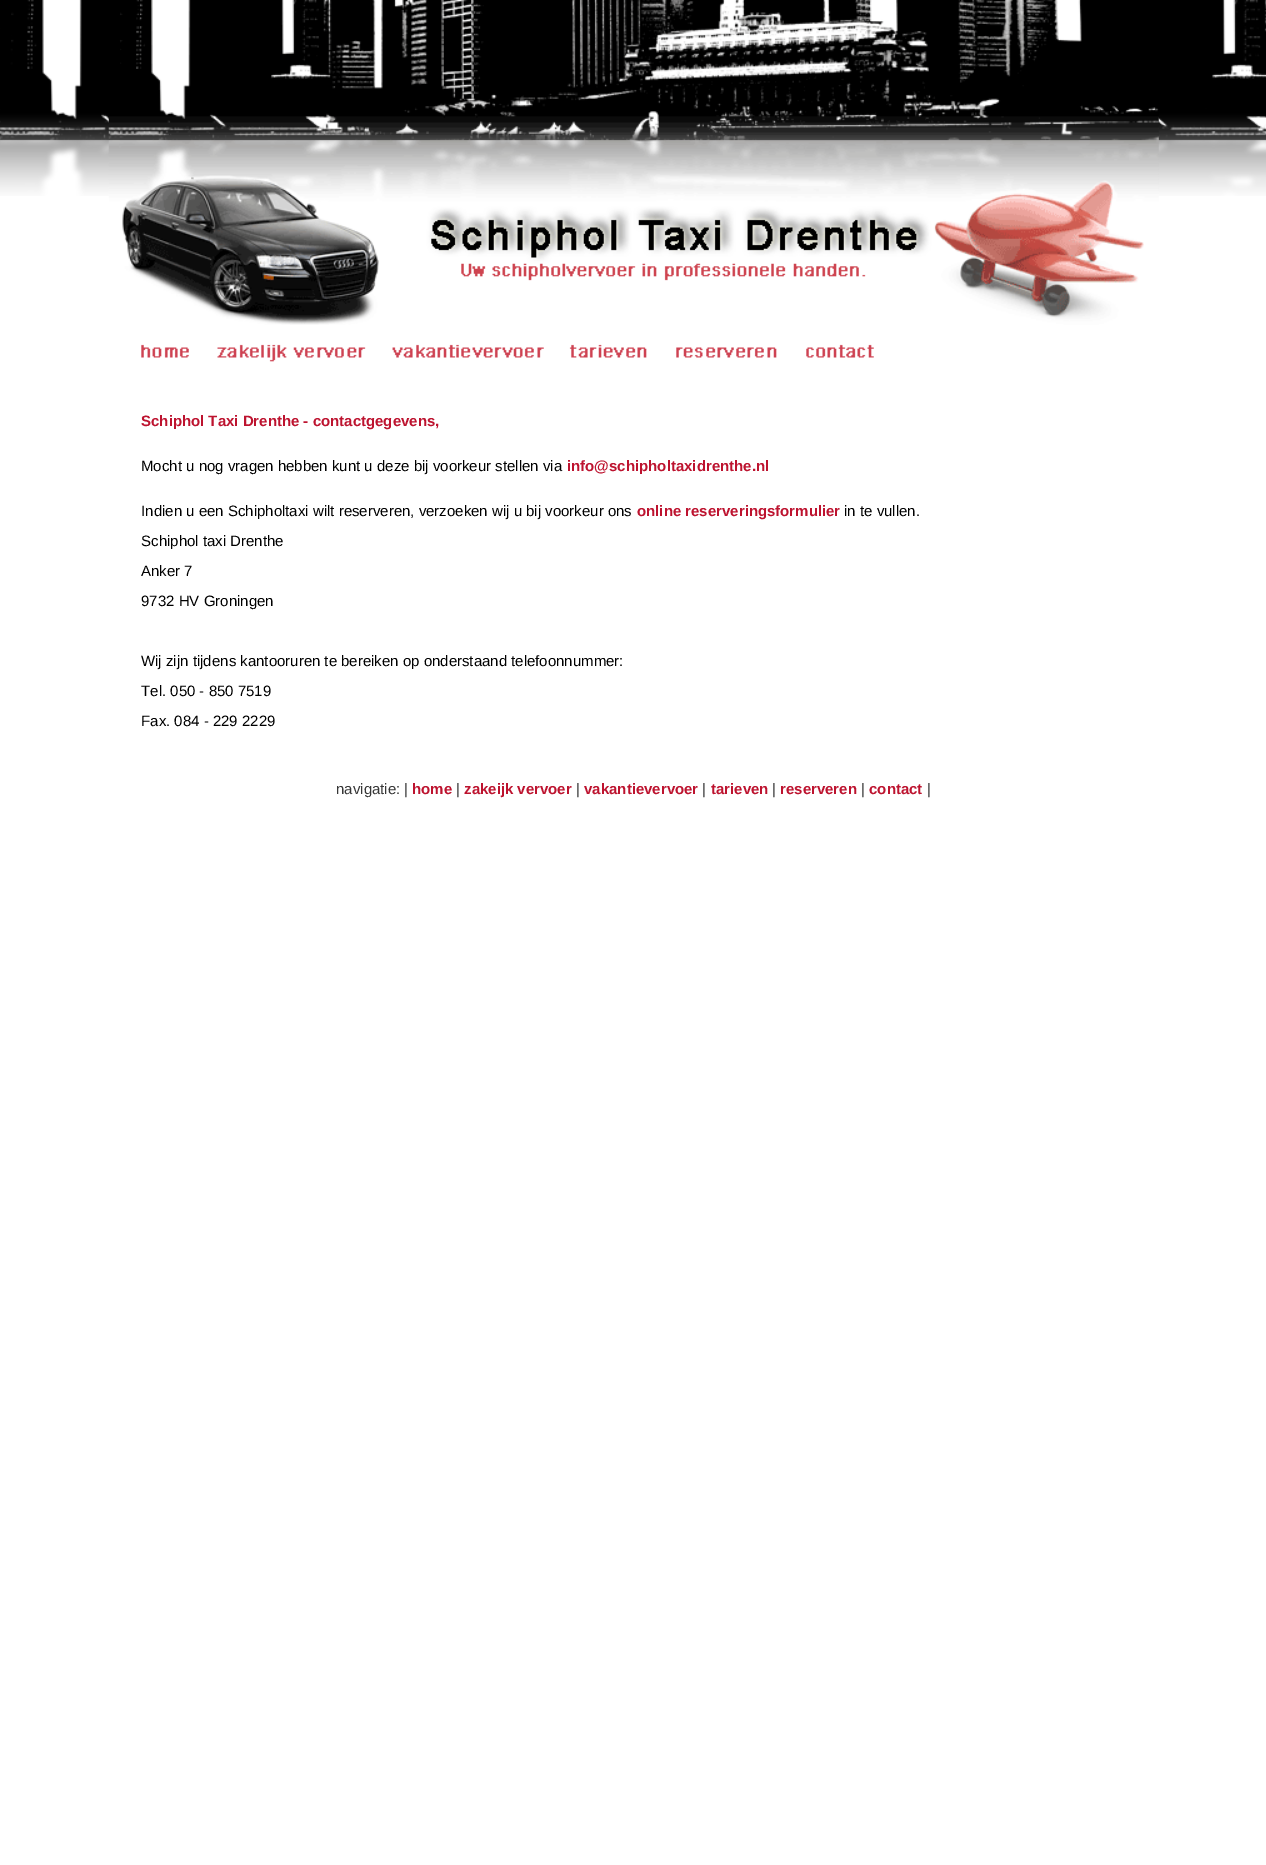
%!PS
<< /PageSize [1266 1865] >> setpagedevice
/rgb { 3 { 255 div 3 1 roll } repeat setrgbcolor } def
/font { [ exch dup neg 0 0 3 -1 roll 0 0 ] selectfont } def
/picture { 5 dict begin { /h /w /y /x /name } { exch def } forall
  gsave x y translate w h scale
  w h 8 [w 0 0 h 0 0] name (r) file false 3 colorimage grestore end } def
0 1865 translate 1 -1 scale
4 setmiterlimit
255 255 255 rgb
0 0 1266 1865 rectfill
(img/1.rgb) 0 0 1266 196 picture
(img/2.rgb) 108 0 1051 325 picture
(img/3.rgb) 141 344 48 14 picture
(img/4.rgb) 217 344 149 18 picture
(img/5.rgb) 392 344 152 14 picture
(img/6.rgb) 569 344 78 14 picture
(img/7.rgb) 676 347 101 11 picture
(img/8.rgb) 806 344 68 14 picture
/LiberationSans-Bold 15 font
189 19 47 rgb
141 426 moveto (Schiphol Taxi Drenthe - contactgegevens,) show
/LiberationSans-Regular 15 font
0 0 0 rgb
141 471 moveto (Mocht u nog vragen hebben kunt u deze bij voorkeur stellen via) show
/LiberationSans-Bold 15 font
189 19 47 rgb
567 471 moveto (info@schipholtaxidrenthe.nl) show
/LiberationSans-Regular 15 font
0 0 0 rgb
141 516 moveto (Indien u een Schipholtaxi wilt reserveren, verzoeken wij u bij voorkeur ons) show
/LiberationSans-Bold 15 font
189 19 47 rgb
637 516 moveto (online reserveringsformulier) show
/LiberationSans-Regular 15 font
0 0 0 rgb
[
  [(in te vullen.) 844 516]
  [(Schiphol taxi Drenthe) 141 546]
  [(Anker 7) 141 576]
  [(9732 HV Groningen) 141 606]
  [(Wij zijn tijdens kantooruren te bereiken op onderstaand telefoonnummer:) 141 666]
  [(Tel. 050 - 850 7519) 141 696]
  [(Fax. 084 - 229 2229) 141 726]
] { aload pop moveto show } forall
55 55 55 rgb
336 794 moveto (navigatie: |) show
/LiberationSans-Bold 15 font
189 19 47 rgb
412 794 moveto (home) show
/LiberationSans-Regular 15 font
55 55 55 rgb
456 794 moveto (|) show
/LiberationSans-Bold 15 font
189 19 47 rgb
464 794 moveto (zakeijk vervoer) show
/LiberationSans-Regular 15 font
55 55 55 rgb
576 794 moveto (|) show
/LiberationSans-Bold 15 font
189 19 47 rgb
584 794 moveto (vakantievervoer) show
/LiberationSans-Regular 15 font
55 55 55 rgb
702 794 moveto (|) show
/LiberationSans-Bold 15 font
189 19 47 rgb
711 794 moveto (tarieven) show
/LiberationSans-Regular 15 font
55 55 55 rgb
772 794 moveto (|) show
/LiberationSans-Bold 15 font
189 19 47 rgb
780 794 moveto (reserveren) show
/LiberationSans-Regular 15 font
55 55 55 rgb
861 794 moveto (|) show
/LiberationSans-Bold 15 font
189 19 47 rgb
869 794 moveto (contact) show
/LiberationSans-Regular 15 font
55 55 55 rgb
927 794 moveto (|) show
showpage
